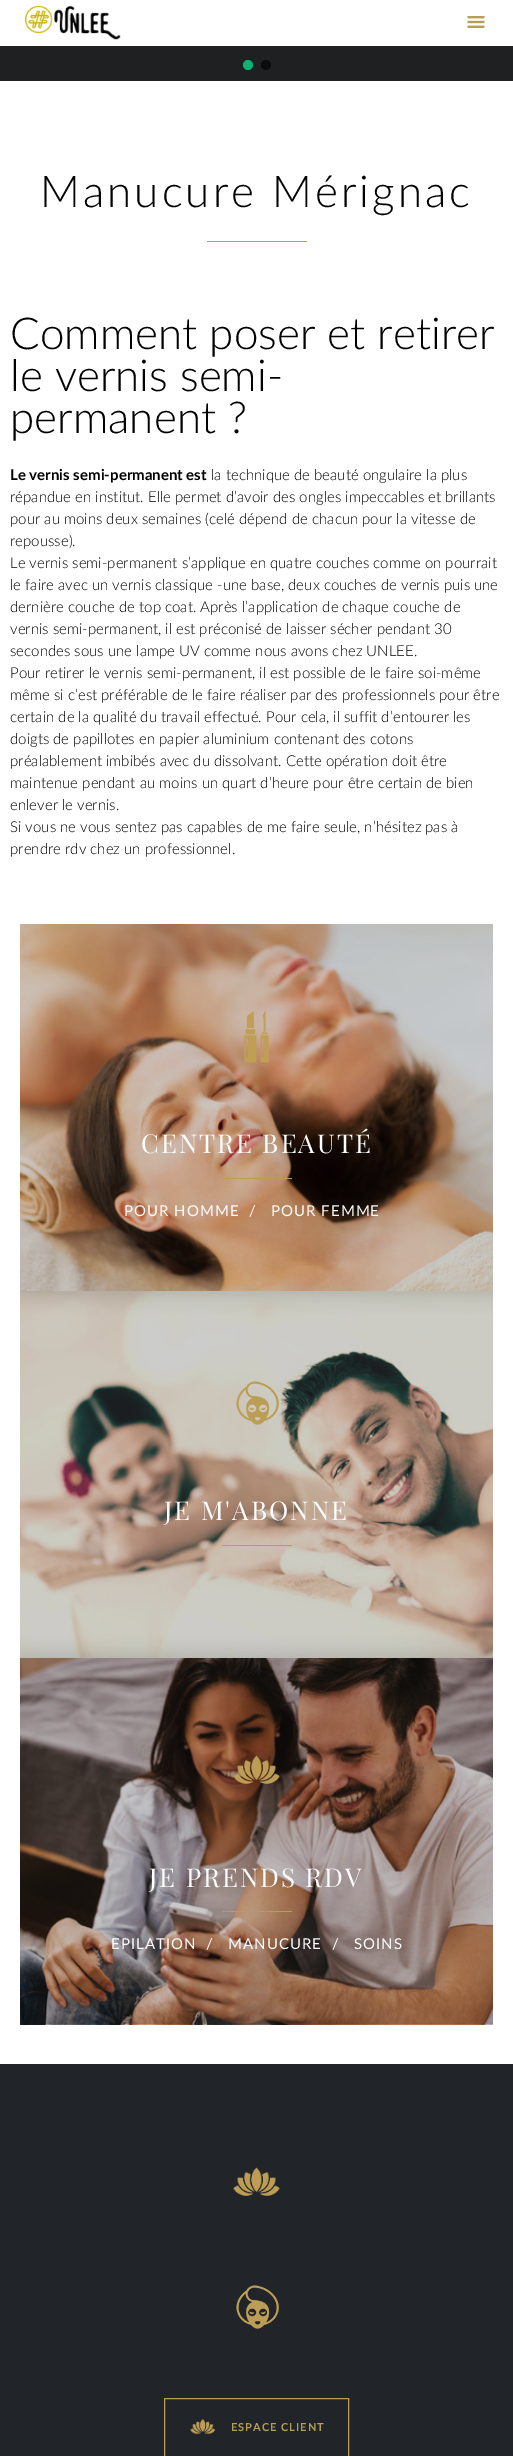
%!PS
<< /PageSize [513 2456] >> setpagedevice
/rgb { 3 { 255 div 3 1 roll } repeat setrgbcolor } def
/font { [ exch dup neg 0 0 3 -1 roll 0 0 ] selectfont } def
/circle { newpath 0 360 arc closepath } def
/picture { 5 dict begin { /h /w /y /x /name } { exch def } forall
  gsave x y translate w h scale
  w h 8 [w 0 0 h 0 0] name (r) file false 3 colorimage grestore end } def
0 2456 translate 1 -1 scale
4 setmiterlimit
255 255 255 rgb
0 0 513 2456 rectfill
(img/1.rgb) 25 5 96 35 picture
(img/2.rgb) 467 16 18 12 picture
30 32 34 rgb
0 46 513 35 rectfill
9 180 116 rgb
248 65 5 circle fill
10 11 11 rgb
266 65 5 circle fill
182 158 89 rgb
207 241 100 1 rectfill
(img/3.rgb) 20 924 473 367 picture
(img/4.rgb) 244 1011 25 52 picture
222 1178 70 1 rectfill
(img/5.rgb) 20 1291 473 367 picture
(img/6.rgb) 236 1381 43 44 picture
222 1545 70 1 rectfill
(img/7.rgb) 20 1658 473 367 picture
(img/8.rgb) 233 1755 47 29 picture
222 1911 70 1 rectfill
33 37 41 rgb
0 2064 513 392 rectfill
(img/9.rgb) 233 2167 47 29 picture
(img/10.rgb) 236 2285 43 44 picture
182 158 89 rgb
164.5 2398.5 184 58 rectstroke
(img/11.rgb) 190 2419 25 16 picture
/Lato-Light 44 font
0 0 0 rgb
40 207 moveto 3 0 (Manucure Mérignac) ashow
[
  [(Comment poser et retirer) 10 349]
  [(le vernis semi-) 10 391]
  [(permanent ?) 10 433]
] { aload pop moveto show } forall
/Lato-Bold 15 font
10 480 moveto (Le vernis semi-permanent est) show
/Lato-Light 15 font
[
  [(la technique de beauté ongulaire la plus) 211 480]
  [(répandue en institut. Elle permet d’avoir des ongles impeccables et brillants) 10 502]
  [(pour au moins deux semaines \(celé dépend de chacun pour la vitesse de) 10 524]
  [(repousse\).) 10 546]
  [(Le vernis semi-permanent s’applique en quatre couches comme on pourrait) 10 568]
  [(le faire avec un vernis classique -une base, deux couches de vernis puis une) 10 590]
  [(dernière couche de top coat. Après l’application de chaque couche de) 10 612]
  [(vernis semi-permanent, il est préconisé de laisser sécher pendant 30) 10 634]
  [(secondes sous une lampe UV comme nous avons chez UNLEE.) 10 656]
  [(Pour retirer le vernis semi-permanent, il est possible de le faire soi-même) 10 678]
  [(même si c’est préférable de le faire réaliser par des professionnels pour être) 10 700]
  [(certain de la qualité du travail effectué. Pour cela, il suffit d’entourer les) 10 722]
  [(doigts de papillotes en papier aluminium contenant des cotons) 10 744]
  [(préalablement imbibés avec du dissolvant. Cette opération doit être) 10 766]
  [(maintenue pendant au moins un quart d’heure pour être certain de bien) 10 788]
  [(enlever le vernis.) 10 810]
  [(Si vous ne vous sentez pas capables de me faire seule, n’hésitez pas à) 10 832]
  [(prendre rdv chez un professionnel.) 10 854]
] { aload pop moveto show } forall
/PlayfairDisplay-Regular 26 font
255 255 255 rgb
141 1153 moveto 2 0 (CENTRE BEAUTÉ) ashow
/Lato-Regular 15 font
124 1216 moveto 1 0 (POUR HOMME  /   POUR FEMME) ashow
/PlayfairDisplay-Regular 26 font
164 1520 moveto 2 0 (JE M'ABONNE) ashow
149 1887 moveto 2 0 (JE PRENDS RDV) ashow
/Lato-Regular 15 font
111 1949 moveto 1 0 (EPILATION  /   MANUCURE  /   SOINS) ashow
/Lato-Bold 11 font
182 158 89 rgb
231 2431 moveto 1 0 (ESPACE CLIENT) ashow
showpage
